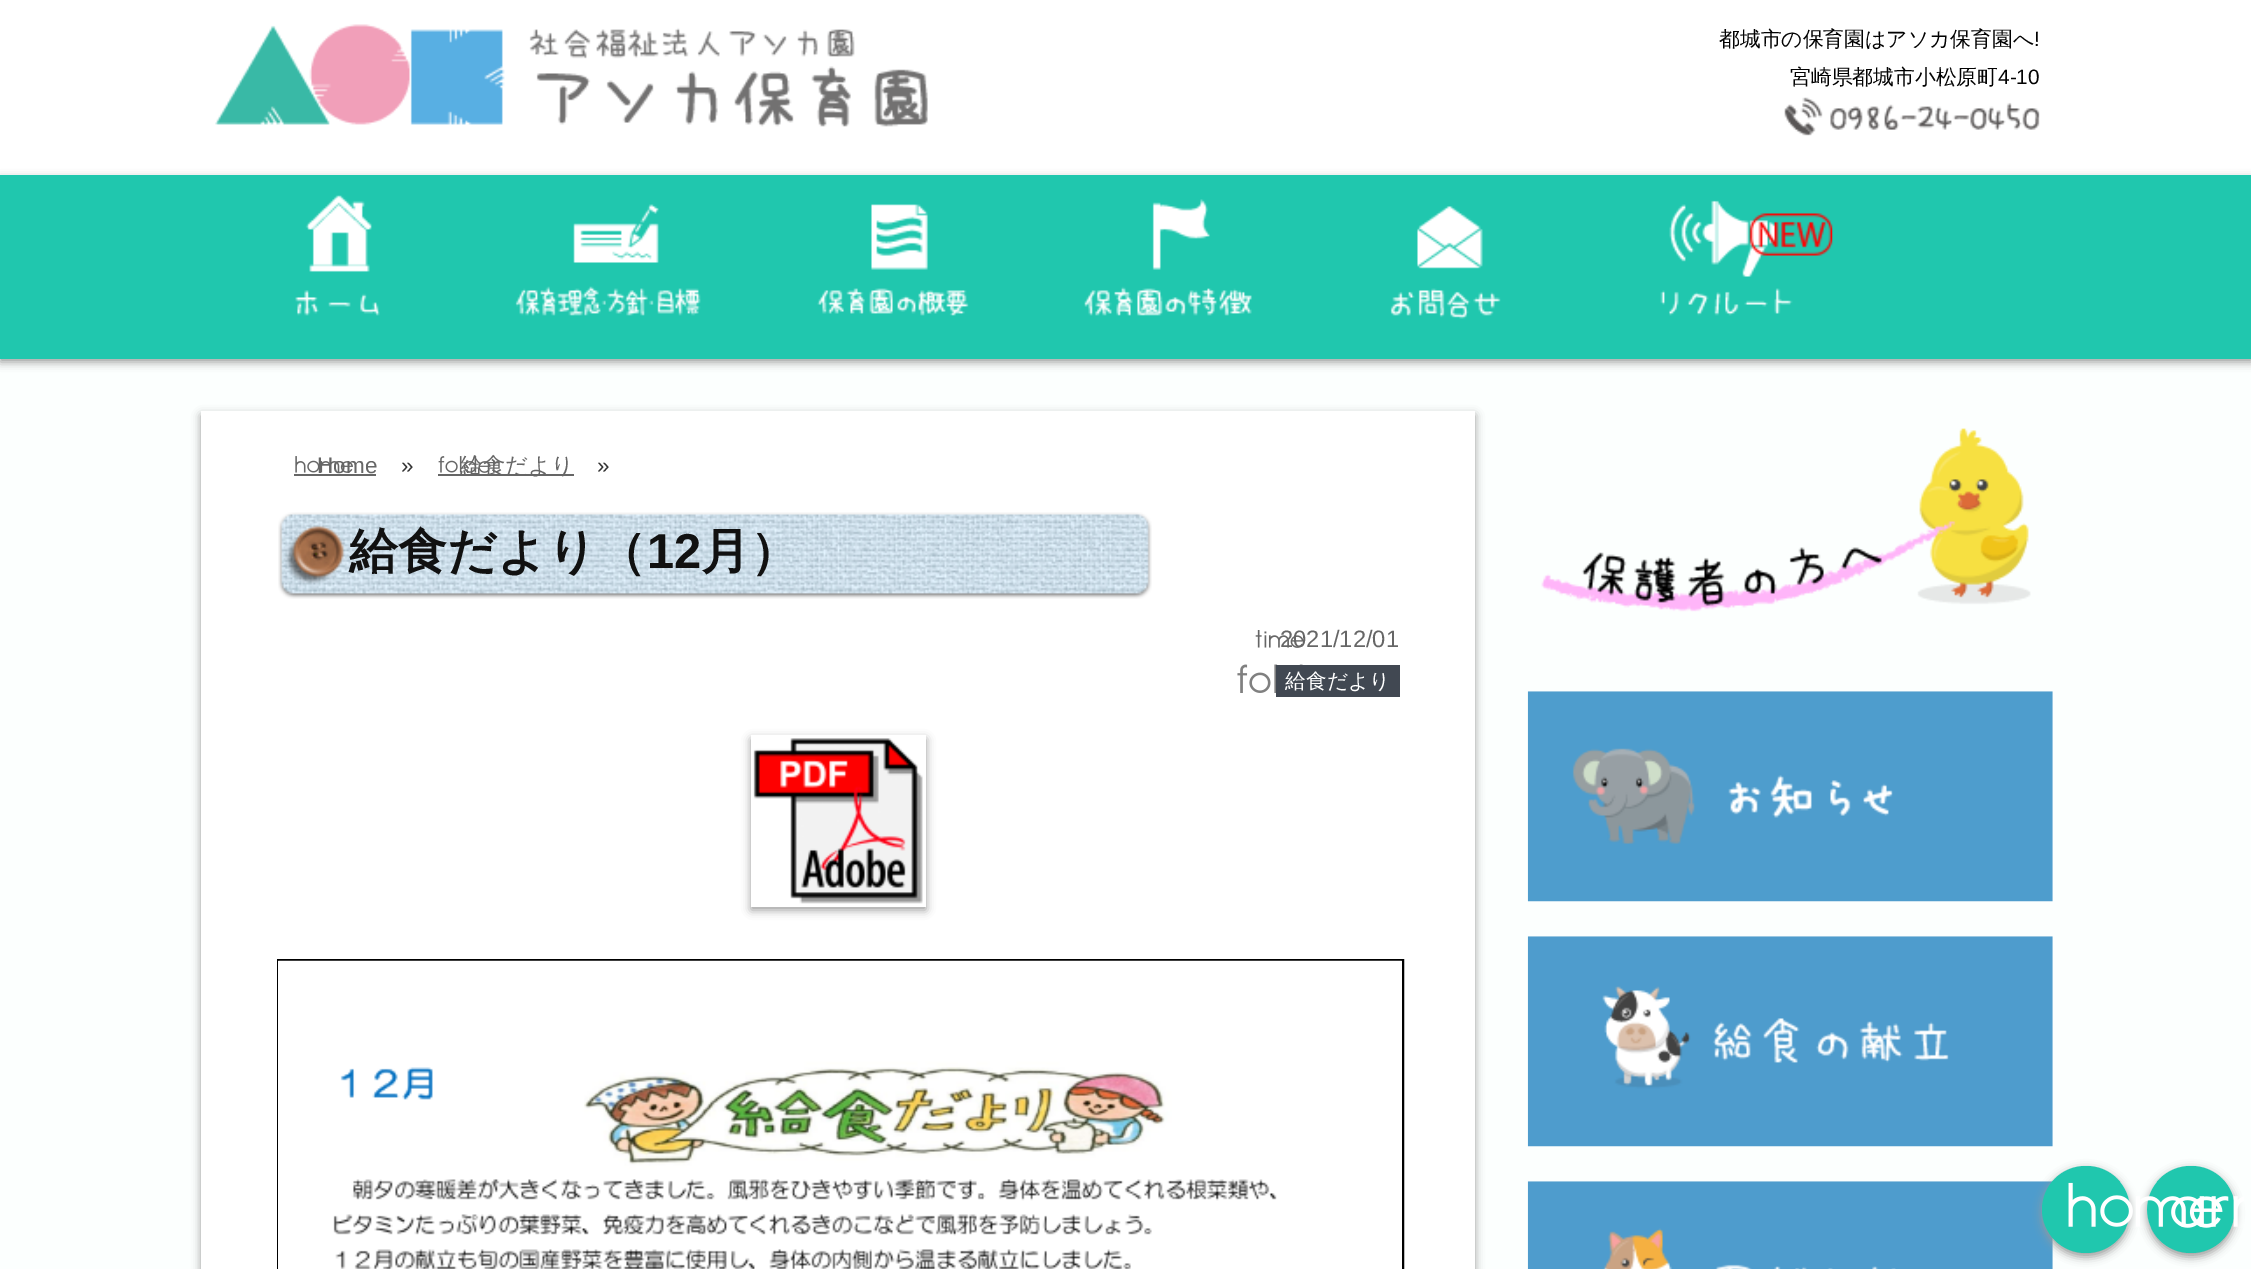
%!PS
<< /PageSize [2251 1269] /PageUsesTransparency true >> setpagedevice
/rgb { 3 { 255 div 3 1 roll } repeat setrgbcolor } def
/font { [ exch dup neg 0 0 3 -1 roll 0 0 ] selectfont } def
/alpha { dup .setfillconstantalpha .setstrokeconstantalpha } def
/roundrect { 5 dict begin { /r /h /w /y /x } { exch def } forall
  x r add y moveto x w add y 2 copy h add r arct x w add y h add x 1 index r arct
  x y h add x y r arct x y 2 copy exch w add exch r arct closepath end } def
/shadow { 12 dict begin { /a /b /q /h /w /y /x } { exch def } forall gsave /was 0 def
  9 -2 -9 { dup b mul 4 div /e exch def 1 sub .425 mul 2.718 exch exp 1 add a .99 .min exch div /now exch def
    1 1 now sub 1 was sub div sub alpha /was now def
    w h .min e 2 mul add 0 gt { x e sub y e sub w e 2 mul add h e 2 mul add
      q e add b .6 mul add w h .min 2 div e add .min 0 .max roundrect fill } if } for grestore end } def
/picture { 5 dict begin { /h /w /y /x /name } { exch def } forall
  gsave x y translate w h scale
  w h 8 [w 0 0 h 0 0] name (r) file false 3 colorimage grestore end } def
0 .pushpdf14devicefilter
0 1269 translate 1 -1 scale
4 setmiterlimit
252 255 254 rgb
0 0 2251 1269 rectfill
255 255 255 rgb
0 0 2251 175 rectfill
(img/1.rgb) 215 24 713 103 picture
(img/2.rgb) 1784 97 256 39 picture
153 153 153 rgb
0 179 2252 183 0 4.5 1 shadow
32 199 174 rgb
0 175 2251 184 rectfill
(img/3.rgb) 295 195 85 121 picture
(img/4.rgb) 515 204 186 112 picture
(img/5.rgb) 817 204 152 112 picture
(img/6.rgb) 1084 199 168 117 picture
(img/7.rgb) 1390 206 111 113 picture
(img/8.rgb) 1660 200 173 116 picture
153 153 153 rgb
201 415 1274 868 0 4.5 1 shadow
255 255 255 rgb
201 411 1274 858 rectfill
(img/9.rgb) 295 456 58 17 picture
102 102 102 rgb
294 474 82 2 rectfill
438 474 136 2 rectfill
(img/10.rgb) 438 456 62 17 picture
(img/11.rgb) 278 512 874 87 picture
(img/12.rgb) 1255 630 49 18 picture
(img/13.rgb) 1237 664 66 29 picture
65 72 82 rgb
1276 665 124 32 rectfill
gsave
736 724 moveto 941 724 lineto 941 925 lineto 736 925 lineto closepath 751 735 moveto 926 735 lineto 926 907 lineto 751 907 lineto closepath eoclip newpath
153 153 153 rgb
751 739 175 171 0 4.5 1 shadow
grestore
(img/14.rgb) 753 738 170 166 picture
0 0 0 rgb
2 setlinewidth
278 960 1125 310 rectstroke
(img/15.rgb) 278 960 1124 309 picture
(img/16.rgb) 1541 428 490 184 picture
(img/17.rgb) 1527 691 526 211 picture
(img/18.rgb) 1527 936 526 211 picture
(img/19.rgb) 1527 1181 526 88 picture
153 153 153 rgb
2042 1169 88 88 44 4.5 1 shadow
32 199 174 rgb
2042 1166 88 87 43.5 roundrect fill
153 153 153 rgb
2147 1169 88 88 44 4.5 1 shadow
32 199 174 rgb
2147 1166 88 87 43.5 roundrect fill
(img/21.rgb) 2171 1196 73 32 picture
(img/20.rgb) 2068 1182 155 46 picture
/WenQuanYiZenHei-Medium 20.8 font
2 2 2 rgb
1719 46 moveto (都城市の保育園はアソカ保育園へ) show
/LiberationSans-Regular 20.8 font
2034 46 moveto (!) show
/WenQuanYiZenHei-Medium 20.8 font
1790 84 moveto (宮崎県都城市小松原町) show
/LiberationSans-Regular 20.8 font
1998 84 moveto (4-10) show
/LiberationSans-Regular 22.5 font
102 102 102 rgb
317 473 moveto (Home) show
51 51 51 rgb
401 473 moveto (») show
/WenQuanYiZenHei-Medium 22.5 font
102 102 102 rgb
460 473 moveto (給食だより) show
/LiberationSans-Regular 22.5 font
51 51 51 rgb
597 473 moveto (») show
/WenQuanYiZenHei-Bold 49 font
17 17 17 rgb
349 568 moveto (給食だより（) show
/LiberationSans-Bold 49 font
647 568 moveto (12) show
/WenQuanYiZenHei-Bold 49 font
701 568 moveto (月）) show
/LiberationSans-Regular 23.75 font
102 102 102 rgb
1280 647 moveto (2021/12/01) show
/WenQuanYiZenHei-Medium 20.8 font
255 255 255 rgb
1285 688 moveto (給食だより) show
.poppdf14devicefilter showpage
